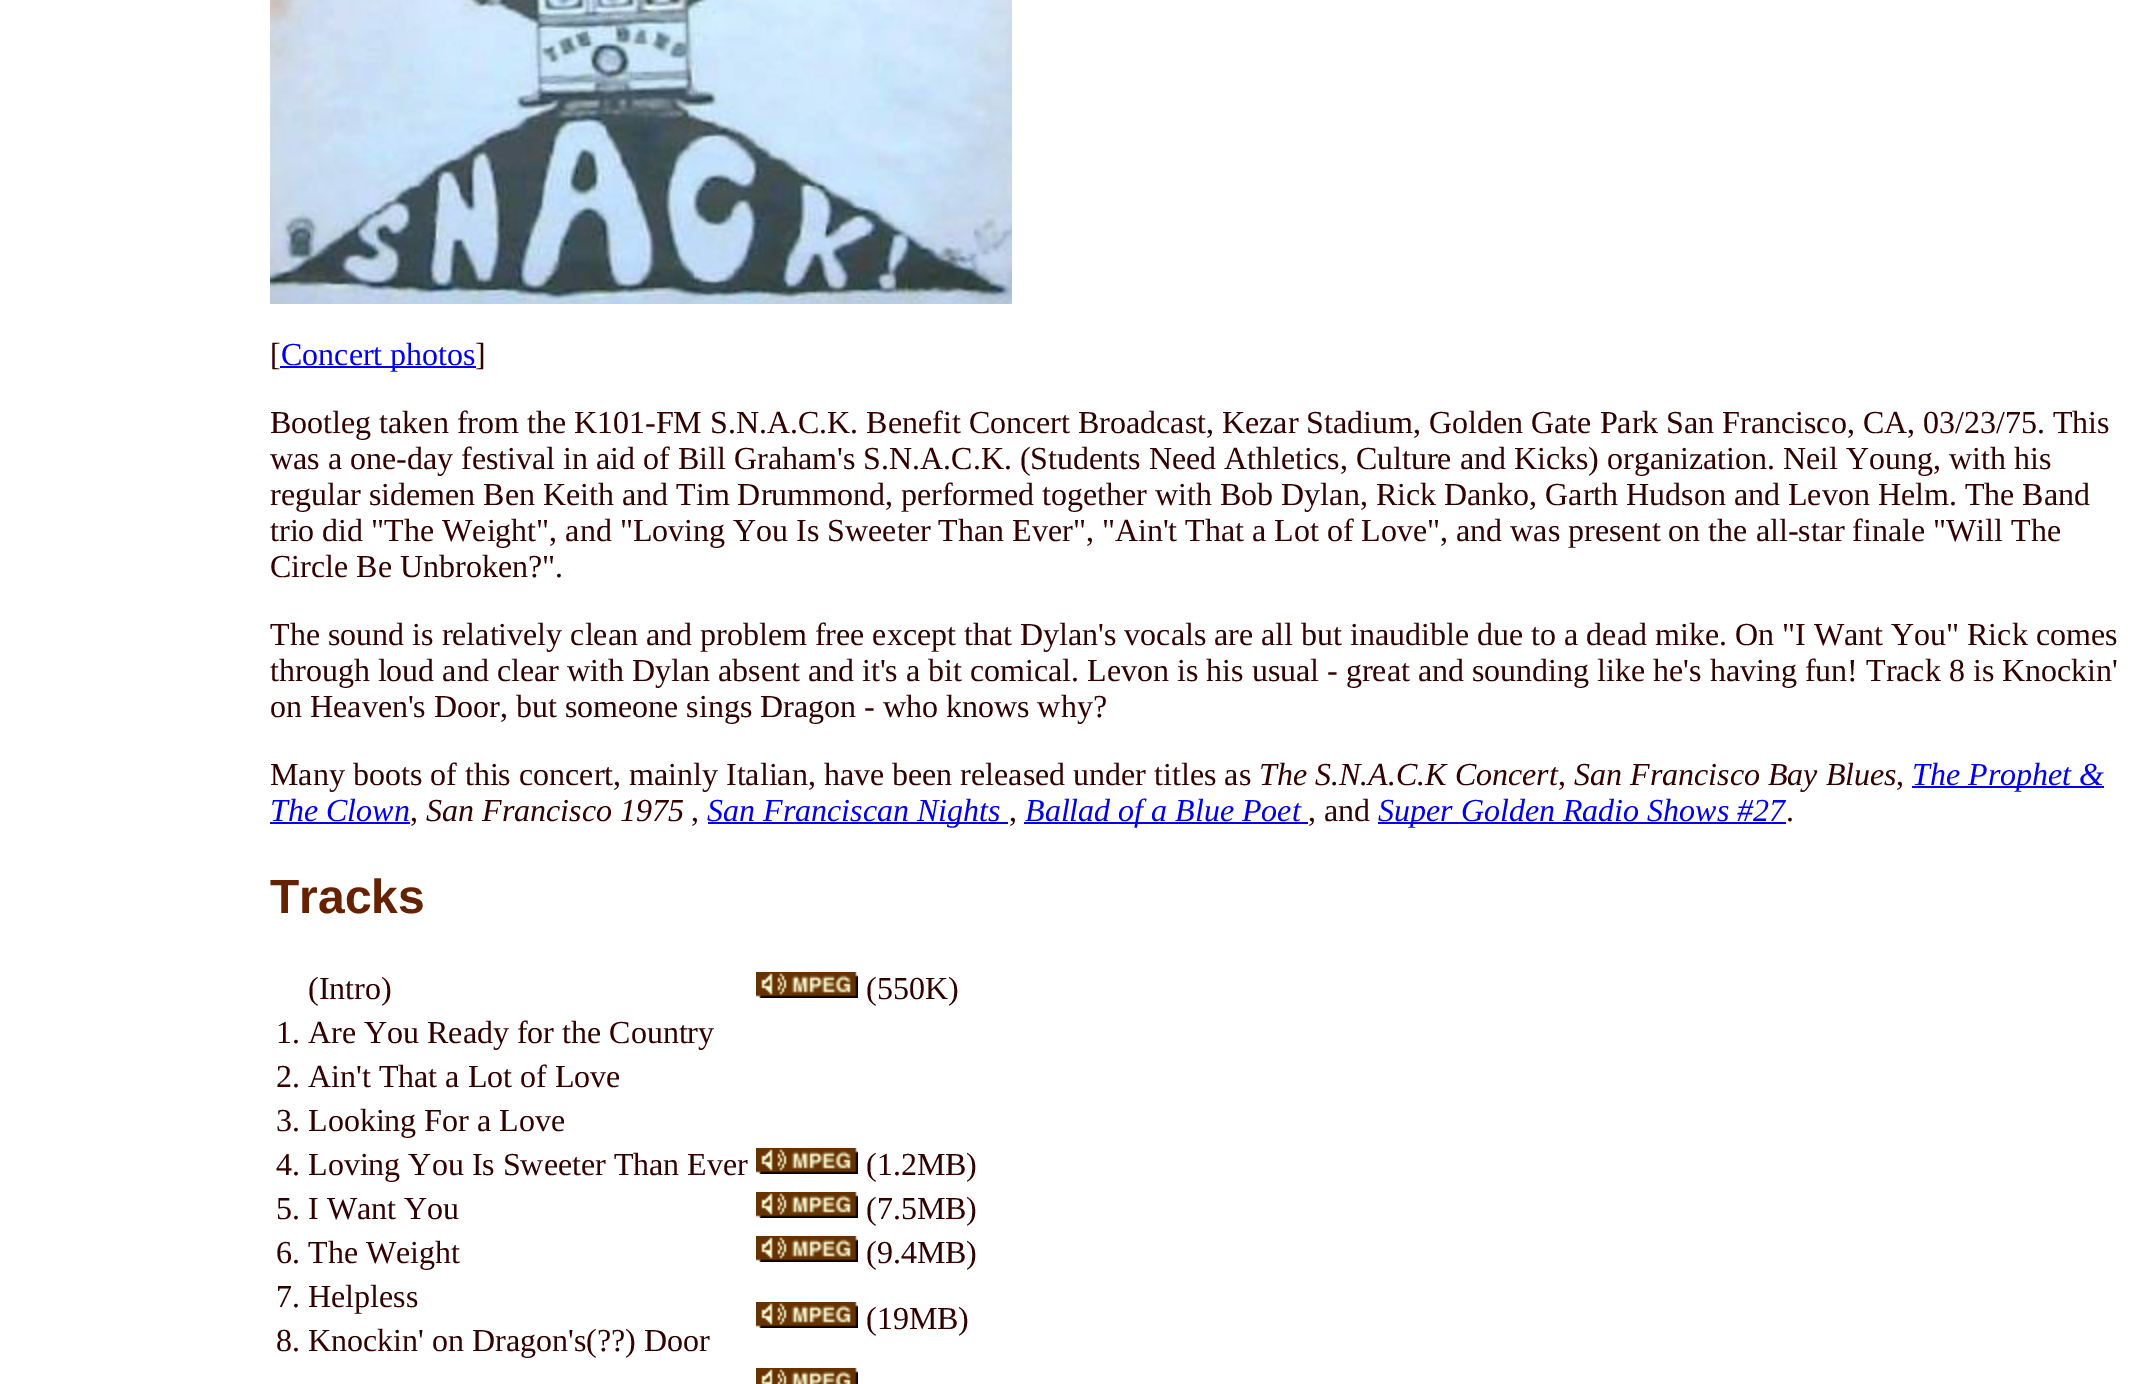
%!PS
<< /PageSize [2147 1384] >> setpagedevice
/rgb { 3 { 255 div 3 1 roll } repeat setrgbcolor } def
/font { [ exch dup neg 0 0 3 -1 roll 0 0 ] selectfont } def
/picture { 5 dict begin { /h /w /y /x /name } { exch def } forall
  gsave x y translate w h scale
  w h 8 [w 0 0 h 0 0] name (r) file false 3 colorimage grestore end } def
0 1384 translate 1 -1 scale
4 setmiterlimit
255 255 255 rgb
0 0 2147 1384 rectfill
(img/1.rgb) 270 0 742 304 picture
[
  [280 366 196 2 0 0 238]
  [1912 786 192 2 0 0 238]
  [270 822 140 2 0 0 238]
  [708 822 300 2 0 0 238]
  [1024 822 284 2 0 0 238]
  [1378 822 408 2 0 0 238]
] { aload pop rgb rectfill } forall
(img/2.rgb) 756 972 102 26 picture
(img/2.rgb) 756 1148 102 26 picture
(img/2.rgb) 756 1192 102 26 picture
(img/2.rgb) 756 1236 102 26 picture
(img/2.rgb) 756 1302 102 26 picture
(img/3.rgb) 756 1368 102 16 picture
/LiberationSerif-Regular 32 font
51 0 0 rgb
270 365 moveto ([) show
0 0 238 rgb
281 365 moveto (Concert photos) show
51 0 0 rgb
[
  [(]) 475 365]
  [(Bootleg taken from the K101-FM S.N.A.C.K. Benefit Concert Broadcast, Kezar Stadium, Golden Gate Park San Francisco, CA, 03/23/75. This) 270 433]
  [(was a one-day festival in aid of Bill Graham's S.N.A.C.K. \(Students Need Athletics, Culture and Kicks\) organization. Neil Young, with his) 270 469]
  [(regular sidemen Ben Keith and Tim Drummond, performed together with Bob Dylan, Rick Danko, Garth Hudson and Levon Helm. The Band) 270 505]
  [(trio did "The Weight", and "Loving You Is Sweeter Than Ever", "Ain't That a Lot of Love", and was present on the all-star finale "Will The) 270 541]
  [(Circle Be Unbroken?".) 270 577]
  [(The sound is relatively clean and problem free except that Dylan's vocals are all but inaudible due to a dead mike. On "I Want You" Rick comes) 270 645]
  [(through loud and clear with Dylan absent and it's a bit comical. Levon is his usual - great and sounding like he's having fun! Track 8 is Knockin') 270 681]
  [(on Heaven's Door, but someone sings Dragon - who knows why?) 270 717]
  [(Many boots of this concert, mainly Italian, have been released under titles as) 270 785]
] { aload pop moveto show } forall
/LiberationSerif-Italic 32 font
1259 785 moveto (The S.N.A.C.K Concert) show
/LiberationSerif-Regular 32 font
1558 785 moveto (,) show
/LiberationSerif-Italic 32 font
1574 785 moveto (San Francisco Bay Blues) show
/LiberationSerif-Regular 32 font
1896 785 moveto (,) show
/LiberationSerif-Italic 32 font
0 0 238 rgb
1912 785 moveto (The Prophet &) show
270 821 moveto (The Clown) show
/LiberationSerif-Regular 32 font
51 0 0 rgb
410 821 moveto (,) show
/LiberationSerif-Italic 32 font
426 821 moveto (San Francisco 1975) show
/LiberationSerif-Regular 32 font
691 821 moveto (,) show
/LiberationSerif-Italic 32 font
0 0 238 rgb
707 821 moveto (San Franciscan Nights) show
/LiberationSerif-Regular 32 font
51 0 0 rgb
1009 821 moveto (,) show
/LiberationSerif-Italic 32 font
0 0 238 rgb
1025 821 moveto (Ballad of a Blue Poet) show
/LiberationSerif-Regular 32 font
51 0 0 rgb
1308 821 moveto (, and) show
/LiberationSerif-Italic 32 font
0 0 238 rgb
1378 821 moveto (Super Golden Radio Shows #27) show
/LiberationSerif-Regular 32 font
51 0 0 rgb
1786 821 moveto (.) show
/LiberationSans-Bold 48 font
102 34 0 rgb
270 913 moveto (Tracks) show
/LiberationSerif-Regular 32 font
51 0 0 rgb
[
  [(\(Intro\)) 308 999]
  [(\(550K\)) 866 999]
  [(1. Are You Ready for the Country) 276 1043]
  [(2. Ain't That a Lot of Love) 276 1087]
  [(3. Looking For a Love) 276 1131]
  [(4. Loving You Is Sweeter Than Ever) 276 1175]
  [(\(1.2MB\)) 866 1175]
  [(5. I Want You) 276 1219]
  [(\(7.5MB\)) 866 1219]
  [(6. The Weight) 276 1263]
  [(\(9.4MB\)) 866 1263]
  [(7. Helpless) 276 1307]
  [(\(19MB\)) 866 1329]
  [(8. Knockin' on Dragon's\(??\) Door) 276 1351]
] { aload pop moveto show } forall
showpage
